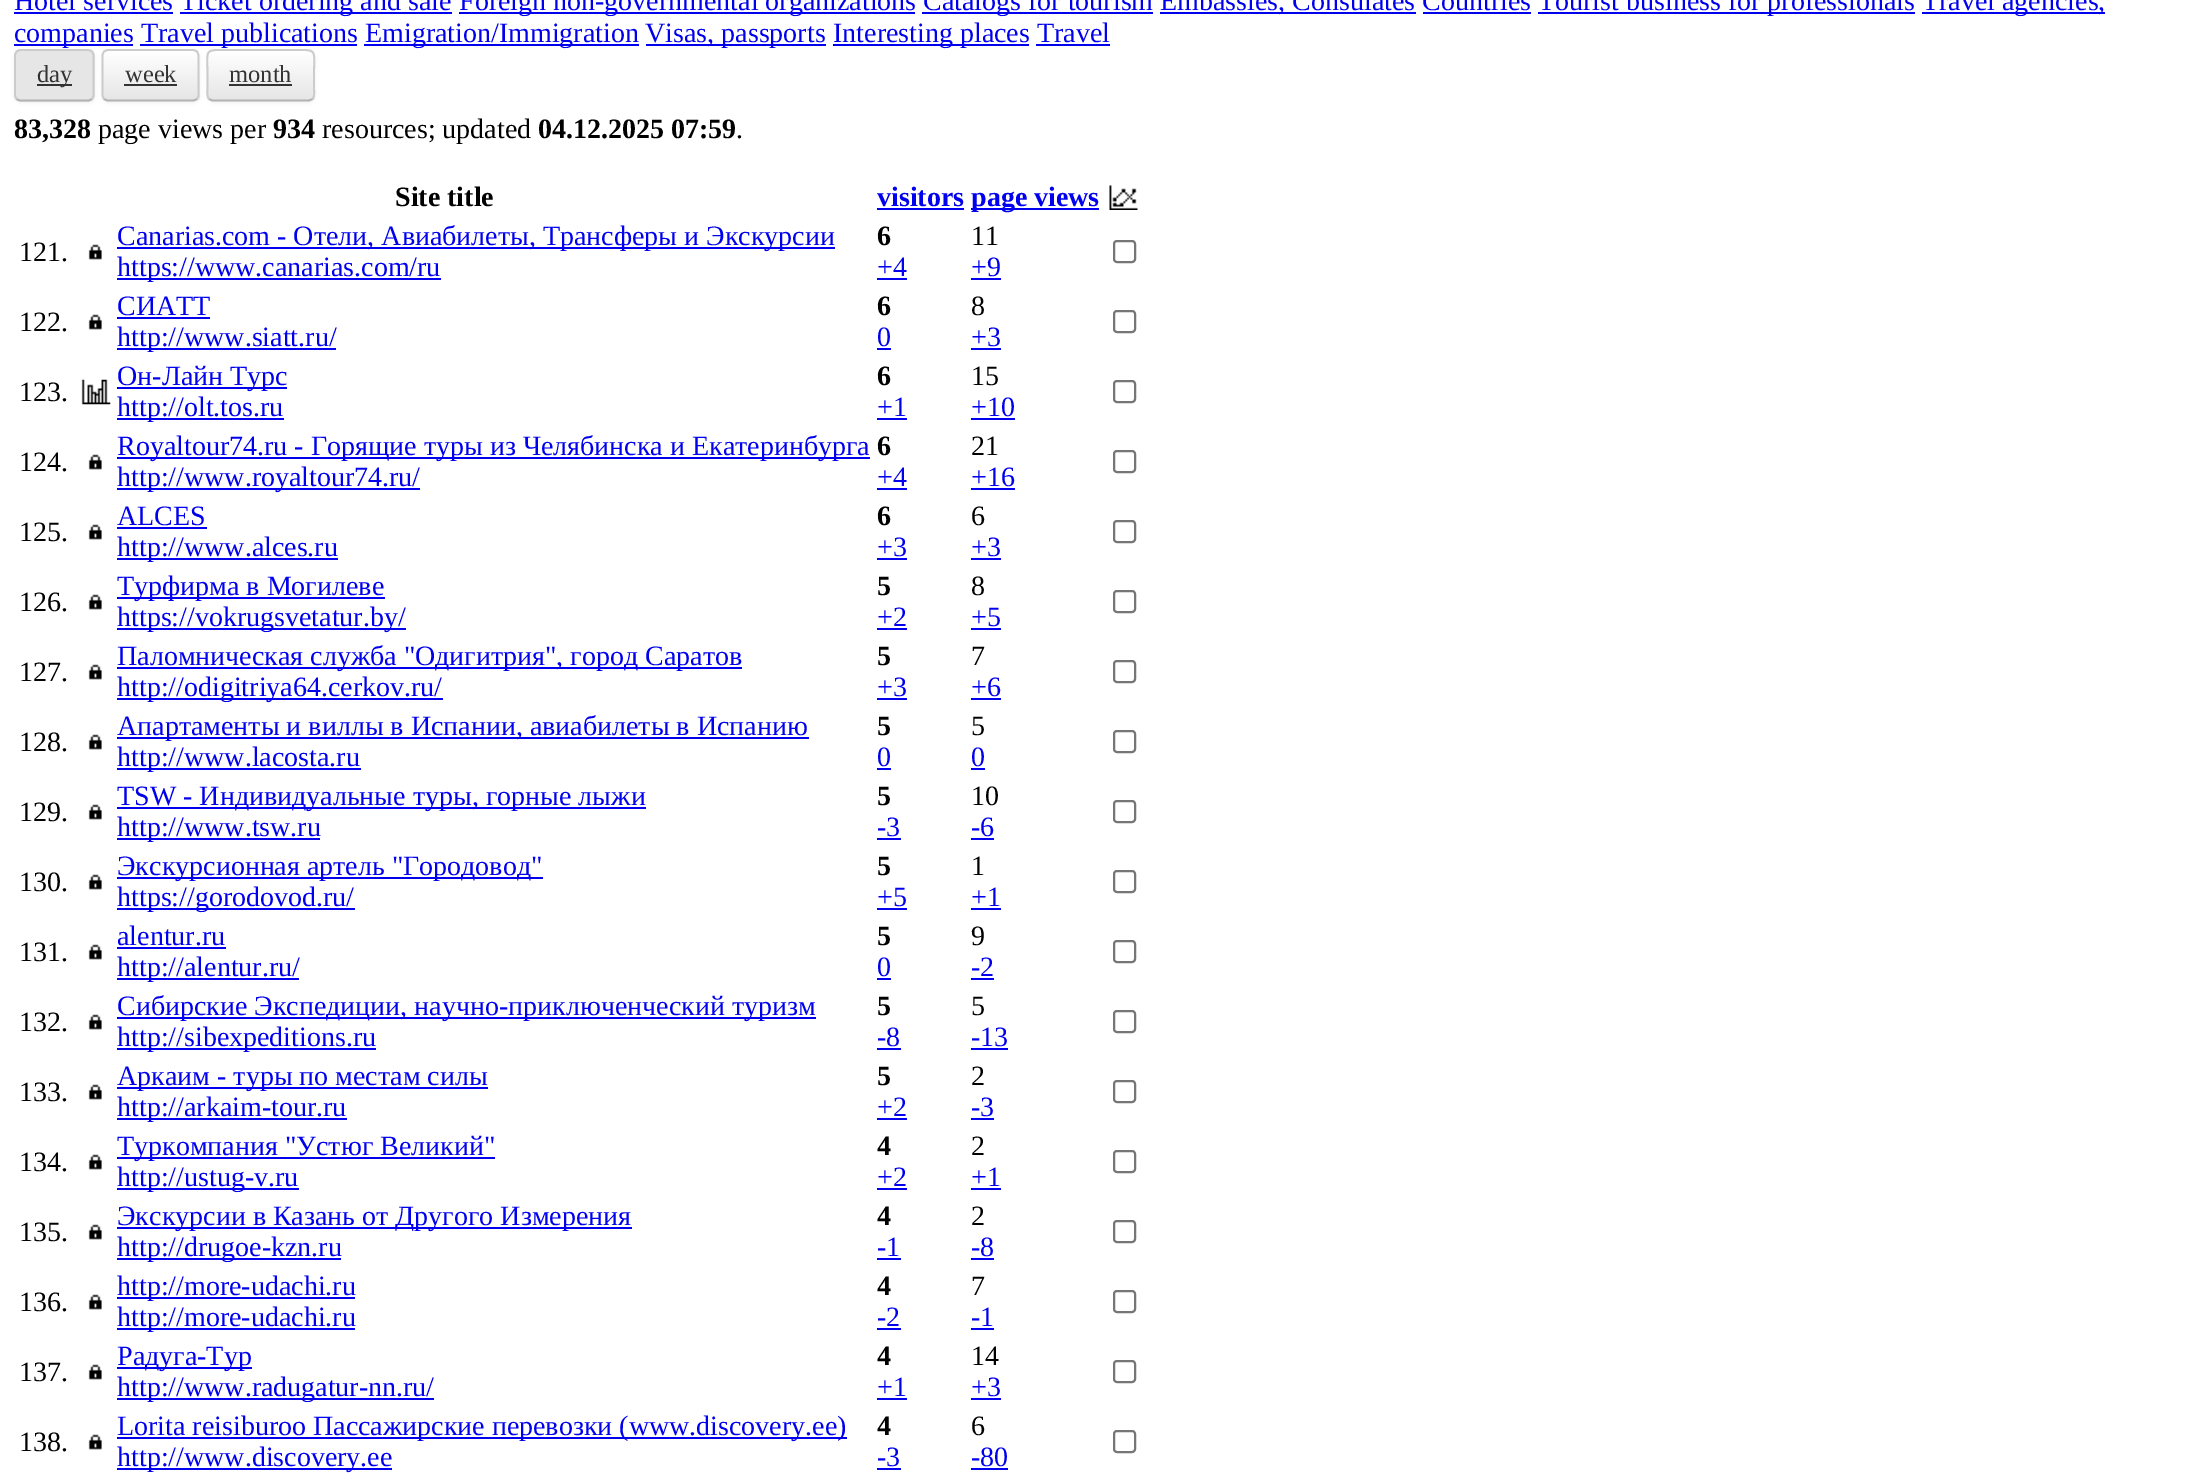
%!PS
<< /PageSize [2200 1474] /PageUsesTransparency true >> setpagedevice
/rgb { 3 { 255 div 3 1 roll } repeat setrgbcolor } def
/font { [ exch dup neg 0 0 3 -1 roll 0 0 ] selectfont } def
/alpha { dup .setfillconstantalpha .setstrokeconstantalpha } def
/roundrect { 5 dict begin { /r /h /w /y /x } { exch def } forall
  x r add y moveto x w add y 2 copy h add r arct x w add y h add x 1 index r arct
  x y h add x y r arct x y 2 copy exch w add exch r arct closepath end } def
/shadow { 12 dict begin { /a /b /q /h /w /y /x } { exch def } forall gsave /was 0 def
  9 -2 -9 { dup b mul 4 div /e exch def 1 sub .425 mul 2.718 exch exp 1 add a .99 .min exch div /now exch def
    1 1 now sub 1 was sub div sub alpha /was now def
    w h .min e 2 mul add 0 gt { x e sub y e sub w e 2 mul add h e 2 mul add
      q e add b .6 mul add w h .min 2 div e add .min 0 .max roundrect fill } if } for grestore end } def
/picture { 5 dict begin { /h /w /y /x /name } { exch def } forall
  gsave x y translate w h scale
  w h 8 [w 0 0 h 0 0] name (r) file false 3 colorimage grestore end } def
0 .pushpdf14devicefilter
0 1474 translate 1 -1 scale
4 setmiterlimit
255 255 255 rgb
0 0 2200 1474 rectfill
[
  [14 12 159 2 0 0 238]
  [180 12 272 2 0 0 238]
  [459 12 456 2 0 0 238]
  [922 12 231 2 0 0 238]
  [1160 12 256 2 0 0 238]
  [1538 12 377 2 0 0 238]
  [1922 12 183 2 0 0 238]
  [1423 12 108 2 0 0 238]
  [14 44 119 2 0 0 238]
  [140 44 217 2 0 0 238]
  [364 44 275 2 0 0 238]
  [646 44 180 2 0 0 238]
  [833 44 196 2 0 0 238]
  [1036 44 74 2 0 0 238]
] { aload pop rgb rectfill } forall
0 0 0 rgb
14 51 81 52 7 2 0.05 shadow
230 230 230 rgb
14 49 81 53 7 roundrect fill
179 179 179 rgb
1.8 setlinewidth
92 99 moveto 90.5 100 89 100.5 87.5 100.5 curveto 21 100.5 lineto 19.5 100.5 18 100 16.5 99 curveto stroke
204 204 204 rgb
16.5 99 moveto 15.5 97.5 15 96 15 94.5 curveto 15 56 lineto 15 54.5 15.5 53 16.5 51.5 curveto 18 50.5 19.5 50 21 50 curveto 87.5 50 lineto 89 50 90.5 50.5 92 51.5 curveto 93 53 93.5 54.5 93.5 56 curveto 93.5 94.5 lineto 93.5 96 93 97.5 92 99 curveto stroke
51 51 51 rgb
37 84 35 2 rectfill
0 0 0 rgb
102 51 98 52 7 2 0.05 shadow
245 245 245 rgb
102 49 98 53 7 roundrect fill
gsave
102 49 98 53 7 roundrect clip newpath
gsave 102 51 moveto 200 51 lineto 200 100 lineto 102 100 lineto closepath clip newpath
<< /ShadingType 2 /ColorSpace /DeviceRGB /Coords [151 51 151 100] /Extend [true true] /Function << /FunctionType 2 /Domain [0 1] /C0 [1 1 1] /C1 [0.902 0.902 0.902] /N 1 >> >> shfill grestore
grestore
179 179 179 rgb
197 99 moveto 195.5 100 194 100.5 192.5 100.5 curveto 108.5 100.5 lineto 107 100.5 105.5 100 104 99 curveto stroke
204 204 204 rgb
104 99 moveto 103 97.5 102.5 96 102.5 94.5 curveto 102.5 56 lineto 102.5 54.5 103 53 104 51.5 curveto 105.5 50.5 107 50 108.5 50 curveto 192.5 50 lineto 194 50 195.5 50.5 197 51.5 curveto 198 53 198.5 54.5 198.5 56 curveto 198.5 94.5 lineto 198.5 96 198 97.5 197 99 curveto stroke
51 51 51 rgb
124 84 53 2 rectfill
0 0 0 rgb
207 51 108 52 7 2 0.05 shadow
245 245 245 rgb
207 49 108 53 7 roundrect fill
gsave
207 49 108 53 7 roundrect clip newpath
gsave 207 51 moveto 315 51 lineto 315 100 lineto 207 100 lineto closepath clip newpath
<< /ShadingType 2 /ColorSpace /DeviceRGB /Coords [261 51 261 100] /Extend [true true] /Function << /FunctionType 2 /Domain [0 1] /C0 [1 1 1] /C1 [0.902 0.902 0.902] /N 1 >> >> shfill grestore
grestore
179 179 179 rgb
312.5 99 moveto 311 100 309.5 100.5 308 100.5 curveto 213.5 100.5 lineto 212 100.5 210.5 100 209 99 curveto stroke
204 204 204 rgb
209 99 moveto 206.5 96 207.5 91.5 207.5 88 curveto 207.5 75 lineto 207.5 48 203 50 229 50 curveto 292 50 lineto 318.5 50 314 48 314 75 curveto 314 88 lineto 314 91.5 315 96 312.5 99 curveto stroke
[
  [229 84 63 2 51 51 51]
  [877 208 87 2 0 0 238]
  [971 208 128 2 0 0 238]
] { aload pop rgb rectfill } forall
(img/1.rgb) 1109 185 29 25 picture
(img/2.rgb) 88 244 14 16 picture
[
  [117 247 718 2 0 0 238]
  [117 278 324 2 0 0 238]
  [877 278 30 2 0 0 238]
  [971 278 30 2 0 0 238]
] { aload pop rgb rectfill } forall
118 118 118 rgb
2 setlinewidth
1114 241 21 21 3 roundrect stroke
(img/2.rgb) 88 314 14 16 picture
[
  [117 317 93 2 0 0 238]
  [117 348 219 2 0 0 238]
  [877 348 14 2 0 0 238]
  [971 348 30 2 0 0 238]
] { aload pop rgb rectfill } forall
118 118 118 rgb
1114 311 21 21 3 roundrect stroke
(img/3.rgb) 81 379 30 26 picture
[
  [117 387 170 2 0 0 238]
  [117 418 167 2 0 0 238]
  [877 418 30 2 0 0 238]
  [971 418 44 2 0 0 238]
] { aload pop rgb rectfill } forall
118 118 118 rgb
1114 381 21 21 3 roundrect stroke
(img/2.rgb) 88 454 14 16 picture
[
  [117 457 753 2 0 0 238]
  [117 488 303 2 0 0 238]
  [877 488 30 2 0 0 238]
  [971 488 44 2 0 0 238]
] { aload pop rgb rectfill } forall
118 118 118 rgb
1114 451 21 21 3 roundrect stroke
(img/2.rgb) 88 524 14 16 picture
[
  [117 527 90 2 0 0 238]
  [117 558 221 2 0 0 238]
  [877 558 30 2 0 0 238]
  [971 558 30 2 0 0 238]
] { aload pop rgb rectfill } forall
118 118 118 rgb
1114 521 21 21 3 roundrect stroke
(img/2.rgb) 88 594 14 16 picture
[
  [117 597 268 2 0 0 238]
  [117 628 289 2 0 0 238]
  [877 628 30 2 0 0 238]
  [971 628 30 2 0 0 238]
] { aload pop rgb rectfill } forall
118 118 118 rgb
1114 591 21 21 3 roundrect stroke
(img/2.rgb) 88 664 14 16 picture
[
  [117 667 625 2 0 0 238]
  [117 698 326 2 0 0 238]
  [877 698 30 2 0 0 238]
  [971 698 30 2 0 0 238]
] { aload pop rgb rectfill } forall
118 118 118 rgb
1114 661 21 21 3 roundrect stroke
(img/2.rgb) 88 734 14 16 picture
[
  [117 737 692 2 0 0 238]
  [117 768 244 2 0 0 238]
  [877 768 14 2 0 0 238]
  [971 768 14 2 0 0 238]
] { aload pop rgb rectfill } forall
118 118 118 rgb
1114 731 21 21 3 roundrect stroke
(img/2.rgb) 88 804 14 16 picture
[
  [117 807 529 2 0 0 238]
  [117 838 203 2 0 0 238]
  [877 838 24 2 0 0 238]
  [971 838 23 2 0 0 238]
] { aload pop rgb rectfill } forall
118 118 118 rgb
1114 801 21 21 3 roundrect stroke
(img/2.rgb) 88 874 14 16 picture
[
  [117 877 426 2 0 0 238]
  [117 908 238 2 0 0 238]
  [877 908 30 2 0 0 238]
  [971 908 30 2 0 0 238]
] { aload pop rgb rectfill } forall
118 118 118 rgb
1114 871 21 21 3 roundrect stroke
(img/2.rgb) 88 944 14 16 picture
[
  [117 947 109 2 0 0 238]
  [117 978 182 2 0 0 238]
  [877 978 14 2 0 0 238]
  [971 978 23 2 0 0 238]
] { aload pop rgb rectfill } forall
118 118 118 rgb
1114 941 21 21 3 roundrect stroke
(img/2.rgb) 88 1014 14 16 picture
[
  [117 1017 699 2 0 0 238]
  [117 1048 259 2 0 0 238]
  [877 1048 24 2 0 0 238]
  [971 1048 37 2 0 0 238]
] { aload pop rgb rectfill } forall
118 118 118 rgb
1114 1011 21 21 3 roundrect stroke
(img/2.rgb) 88 1084 14 16 picture
[
  [117 1087 371 2 0 0 238]
  [117 1118 230 2 0 0 238]
  [877 1118 30 2 0 0 238]
  [971 1118 23 2 0 0 238]
] { aload pop rgb rectfill } forall
118 118 118 rgb
1114 1081 21 21 3 roundrect stroke
(img/2.rgb) 88 1154 14 16 picture
[
  [117 1157 378 2 0 0 238]
  [117 1188 182 2 0 0 238]
  [877 1188 30 2 0 0 238]
  [971 1188 30 2 0 0 238]
] { aload pop rgb rectfill } forall
118 118 118 rgb
1114 1151 21 21 3 roundrect stroke
(img/2.rgb) 88 1224 14 16 picture
[
  [117 1227 515 2 0 0 238]
  [117 1258 224 2 0 0 238]
  [877 1258 24 2 0 0 238]
  [971 1258 23 2 0 0 238]
] { aload pop rgb rectfill } forall
118 118 118 rgb
1114 1221 21 21 3 roundrect stroke
(img/2.rgb) 88 1294 14 16 picture
[
  [117 1297 238 2 0 0 238]
  [117 1328 238 2 0 0 238]
  [877 1328 24 2 0 0 238]
  [971 1328 23 2 0 0 238]
] { aload pop rgb rectfill } forall
118 118 118 rgb
1114 1291 21 21 3 roundrect stroke
(img/2.rgb) 88 1364 14 16 picture
[
  [117 1367 135 2 0 0 238]
  [117 1398 317 2 0 0 238]
  [877 1398 30 2 0 0 238]
  [971 1398 30 2 0 0 238]
] { aload pop rgb rectfill } forall
118 118 118 rgb
1114 1361 21 21 3 roundrect stroke
(img/2.rgb) 88 1434 14 16 picture
[
  [117 1437 730 2 0 0 238]
  [117 1468 275 2 0 0 238]
  [877 1468 24 2 0 0 238]
  [971 1468 37 2 0 0 238]
] { aload pop rgb rectfill } forall
118 118 118 rgb
1114 1431 21 21 3 roundrect stroke
/LiberationSerif-Regular 28 font
0 0 238 rgb
[
  [(Hotel services) 14 10]
  [(Тicket ordering and sale) 180 10]
  [(Foreign non-governmental organizations) 459 10]
  [(Catalogs for tourism) 923 10]
  [(Embassies, Consulates Countries) 1160 10]
  [(Tourist business for professionals) 1538 10]
  [(Travel agencies,) 1922 10]
  [(companies) 14 42]
  [(Travel publications) 141 42]
  [(Emigration/Immigration) 365 42]
  [(Visas, passports) 645 42]
  [(Interesting places Travel) 833 42]
] { aload pop moveto show } forall
/LiberationSerif-Regular 24.5 font
51 51 51 rgb
[
  [(day) 37 82]
  [(week) 125 82]
  [(month) 229 82]
] { aload pop moveto show } forall
/LiberationSerif-Bold 28 font
0 0 0 rgb
14 138 moveto (83,328) show
/LiberationSerif-Regular 28 font
98 138 moveto (page views per) show
/LiberationSerif-Bold 28 font
273 138 moveto (934) show
/LiberationSerif-Regular 28 font
322 138 moveto (resources; updated) show
/LiberationSerif-Bold 28 font
538 138 moveto (04.12.2025 07:59) show
/LiberationSerif-Regular 28 font
736 138 moveto (.) show
/LiberationSerif-Bold 28 font
395 206 moveto (Site title) show
0 0 238 rgb
877 206 moveto (visitors) show
971 206 moveto (page views) show
/LiberationSerif-Regular 28 font
0 0 0 rgb
19 261 moveto (121.) show
0 0 238 rgb
117 245 moveto (Canarias.com - Отели, Авиабилеты, Трансферы и Экскурсии) show
117 276 moveto (https://www.canarias.com/ru) show
/LiberationSerif-Bold 28 font
0 0 0 rgb
877 245 moveto (6) show
/LiberationSerif-Regular 28 font
0 0 238 rgb
877 276 moveto (+4) show
0 0 0 rgb
971 245 moveto (11) show
0 0 238 rgb
971 276 moveto (+9) show
0 0 0 rgb
19 331 moveto (122.) show
0 0 238 rgb
117 315 moveto (СИАТТ) show
117 346 moveto (http://www.siatt.ru/) show
/LiberationSerif-Bold 28 font
0 0 0 rgb
877 315 moveto (6) show
/LiberationSerif-Regular 28 font
0 0 238 rgb
877 346 moveto (0) show
0 0 0 rgb
971 315 moveto (8) show
0 0 238 rgb
971 346 moveto (+3) show
0 0 0 rgb
19 401 moveto (123.) show
0 0 238 rgb
117 385 moveto (Он-Лайн Турс) show
117 416 moveto (http://olt.tos.ru) show
/LiberationSerif-Bold 28 font
0 0 0 rgb
877 385 moveto (6) show
/LiberationSerif-Regular 28 font
0 0 238 rgb
877 416 moveto (+1) show
0 0 0 rgb
971 385 moveto (15) show
0 0 238 rgb
971 416 moveto (+10) show
0 0 0 rgb
19 471 moveto (124.) show
0 0 238 rgb
117 455 moveto (Royaltour74.ru - Горящие туры из Челябинска и Екатеринбурга) show
117 486 moveto (http://www.royaltour74.ru/) show
/LiberationSerif-Bold 28 font
0 0 0 rgb
877 455 moveto (6) show
/LiberationSerif-Regular 28 font
0 0 238 rgb
877 486 moveto (+4) show
0 0 0 rgb
971 455 moveto (21) show
0 0 238 rgb
971 486 moveto (+16) show
0 0 0 rgb
19 541 moveto (125.) show
0 0 238 rgb
117 525 moveto (ALCES) show
117 556 moveto (http://www.alces.ru) show
/LiberationSerif-Bold 28 font
0 0 0 rgb
877 525 moveto (6) show
/LiberationSerif-Regular 28 font
0 0 238 rgb
877 556 moveto (+3) show
0 0 0 rgb
971 525 moveto (6) show
0 0 238 rgb
971 556 moveto (+3) show
0 0 0 rgb
19 611 moveto (126.) show
0 0 238 rgb
117 595 moveto (Турфирма в Могилеве) show
117 626 moveto (https://vokrugsvetatur.by/) show
/LiberationSerif-Bold 28 font
0 0 0 rgb
877 595 moveto (5) show
/LiberationSerif-Regular 28 font
0 0 238 rgb
877 626 moveto (+2) show
0 0 0 rgb
971 595 moveto (8) show
0 0 238 rgb
971 626 moveto (+5) show
0 0 0 rgb
19 681 moveto (127.) show
0 0 238 rgb
117 665 moveto (Паломническая служба "Одигитрия", город Саратов) show
117 696 moveto (http://odigitriya64.cerkov.ru/) show
/LiberationSerif-Bold 28 font
0 0 0 rgb
877 665 moveto (5) show
/LiberationSerif-Regular 28 font
0 0 238 rgb
877 696 moveto (+3) show
0 0 0 rgb
971 665 moveto (7) show
0 0 238 rgb
971 696 moveto (+6) show
0 0 0 rgb
19 751 moveto (128.) show
0 0 238 rgb
117 735 moveto (Апартаменты и виллы в Испании, авиабилеты в Испанию) show
117 766 moveto (http://www.lacosta.ru) show
/LiberationSerif-Bold 28 font
0 0 0 rgb
877 735 moveto (5) show
/LiberationSerif-Regular 28 font
0 0 238 rgb
877 766 moveto (0) show
0 0 0 rgb
971 735 moveto (5) show
0 0 238 rgb
971 766 moveto (0) show
0 0 0 rgb
19 821 moveto (129.) show
0 0 238 rgb
117 805 moveto (TSW - Индивидуальные туры, горные лыжи) show
117 836 moveto (http://www.tsw.ru) show
/LiberationSerif-Bold 28 font
0 0 0 rgb
877 805 moveto (5) show
/LiberationSerif-Regular 28 font
0 0 238 rgb
877 836 moveto (-3) show
0 0 0 rgb
971 805 moveto (10) show
0 0 238 rgb
971 836 moveto (-6) show
0 0 0 rgb
19 891 moveto (130.) show
0 0 238 rgb
117 875 moveto (Экскурсионная артель "Городовод") show
117 906 moveto (https://gorodovod.ru/) show
/LiberationSerif-Bold 28 font
0 0 0 rgb
877 875 moveto (5) show
/LiberationSerif-Regular 28 font
0 0 238 rgb
877 906 moveto (+5) show
0 0 0 rgb
971 875 moveto (1) show
0 0 238 rgb
971 906 moveto (+1) show
0 0 0 rgb
19 961 moveto (131.) show
0 0 238 rgb
117 945 moveto (alentur.ru) show
117 976 moveto (http://alentur.ru/) show
/LiberationSerif-Bold 28 font
0 0 0 rgb
877 945 moveto (5) show
/LiberationSerif-Regular 28 font
0 0 238 rgb
877 976 moveto (0) show
0 0 0 rgb
971 945 moveto (9) show
0 0 238 rgb
971 976 moveto (-2) show
0 0 0 rgb
19 1031 moveto (132.) show
0 0 238 rgb
117 1015 moveto (Сибирские Экспедиции, научно-приключенческий туризм) show
117 1046 moveto (http://sibexpeditions.ru) show
/LiberationSerif-Bold 28 font
0 0 0 rgb
877 1015 moveto (5) show
/LiberationSerif-Regular 28 font
0 0 238 rgb
877 1046 moveto (-8) show
0 0 0 rgb
971 1015 moveto (5) show
0 0 238 rgb
971 1046 moveto (-13) show
0 0 0 rgb
19 1101 moveto (133.) show
0 0 238 rgb
117 1085 moveto (Аркаим - туры по местам силы) show
117 1116 moveto (http://arkaim-tour.ru) show
/LiberationSerif-Bold 28 font
0 0 0 rgb
877 1085 moveto (5) show
/LiberationSerif-Regular 28 font
0 0 238 rgb
877 1116 moveto (+2) show
0 0 0 rgb
971 1085 moveto (2) show
0 0 238 rgb
971 1116 moveto (-3) show
0 0 0 rgb
19 1171 moveto (134.) show
0 0 238 rgb
117 1155 moveto (Туркомпания "Устюг Великий") show
117 1186 moveto (http://ustug-v.ru) show
/LiberationSerif-Bold 28 font
0 0 0 rgb
877 1155 moveto (4) show
/LiberationSerif-Regular 28 font
0 0 238 rgb
877 1186 moveto (+2) show
0 0 0 rgb
971 1155 moveto (2) show
0 0 238 rgb
971 1186 moveto (+1) show
0 0 0 rgb
19 1241 moveto (135.) show
0 0 238 rgb
117 1225 moveto (Экскурсии в Казань от Другого Измерения) show
117 1256 moveto (http://drugoe-kzn.ru) show
/LiberationSerif-Bold 28 font
0 0 0 rgb
877 1225 moveto (4) show
/LiberationSerif-Regular 28 font
0 0 238 rgb
877 1256 moveto (-1) show
0 0 0 rgb
971 1225 moveto (2) show
0 0 238 rgb
971 1256 moveto (-8) show
0 0 0 rgb
19 1311 moveto (136.) show
0 0 238 rgb
117 1295 moveto (http://more-udachi.ru) show
117 1326 moveto (http://more-udachi.ru) show
/LiberationSerif-Bold 28 font
0 0 0 rgb
877 1295 moveto (4) show
/LiberationSerif-Regular 28 font
0 0 238 rgb
877 1326 moveto (-2) show
0 0 0 rgb
971 1295 moveto (7) show
0 0 238 rgb
971 1326 moveto (-1) show
0 0 0 rgb
19 1381 moveto (137.) show
0 0 238 rgb
117 1365 moveto (Радуга-Тур) show
117 1396 moveto (http://www.radugatur-nn.ru/) show
/LiberationSerif-Bold 28 font
0 0 0 rgb
877 1365 moveto (4) show
/LiberationSerif-Regular 28 font
0 0 238 rgb
877 1396 moveto (+1) show
0 0 0 rgb
971 1365 moveto (14) show
0 0 238 rgb
971 1396 moveto (+3) show
0 0 0 rgb
19 1451 moveto (138.) show
0 0 238 rgb
117 1435 moveto (Lorita reisiburoo Пассажирские перевозки \(www.discovery.ee\)) show
117 1466 moveto (http://www.discovery.ee) show
/LiberationSerif-Bold 28 font
0 0 0 rgb
877 1435 moveto (4) show
/LiberationSerif-Regular 28 font
0 0 238 rgb
877 1466 moveto (-3) show
0 0 0 rgb
971 1435 moveto (6) show
0 0 238 rgb
971 1466 moveto (-80) show
.poppdf14devicefilter showpage
